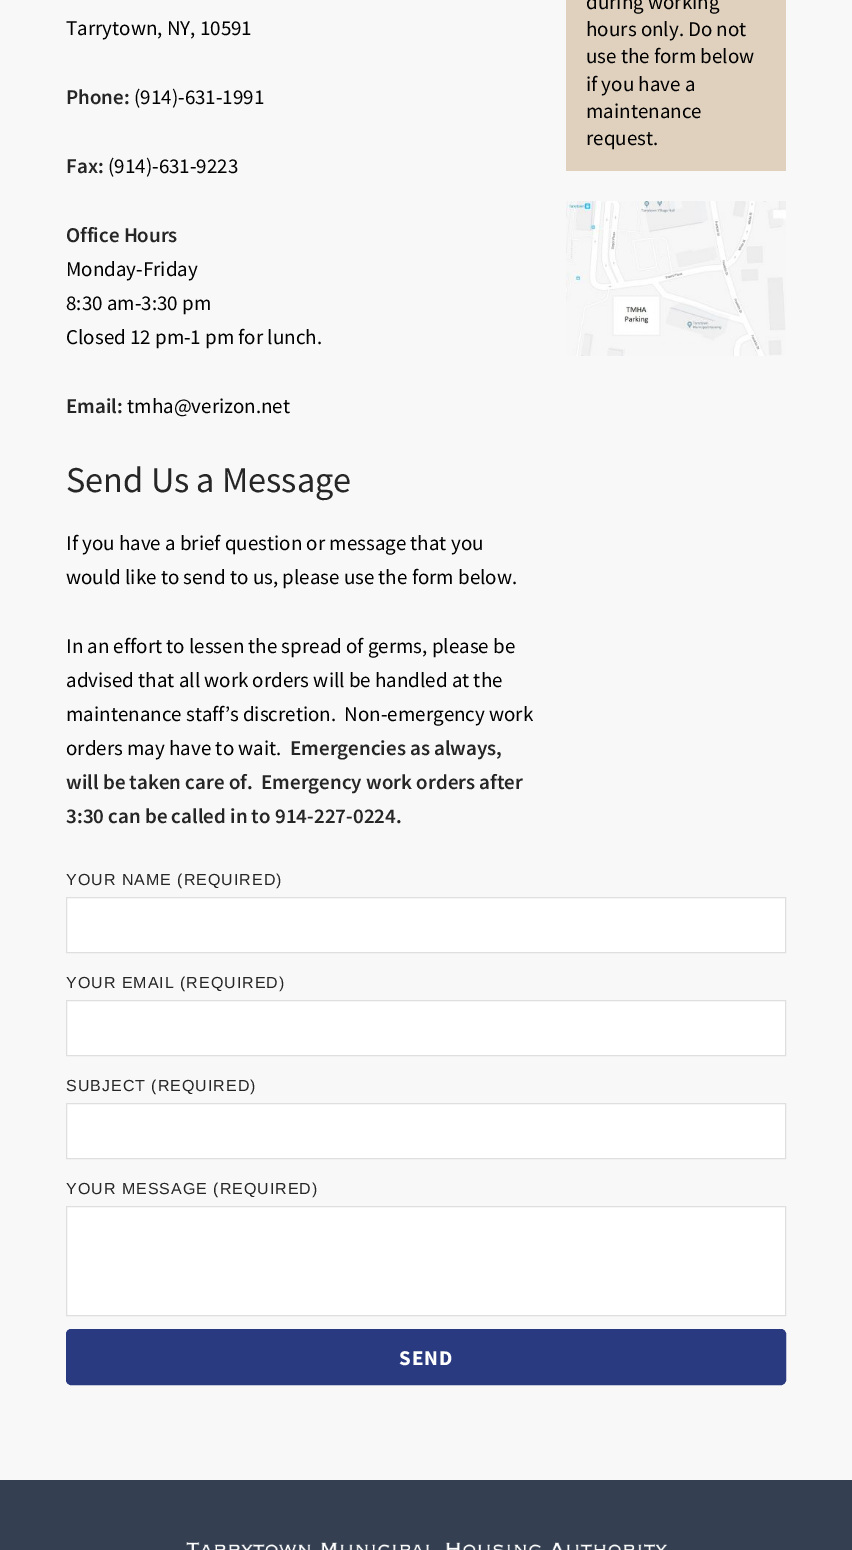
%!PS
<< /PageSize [852 1550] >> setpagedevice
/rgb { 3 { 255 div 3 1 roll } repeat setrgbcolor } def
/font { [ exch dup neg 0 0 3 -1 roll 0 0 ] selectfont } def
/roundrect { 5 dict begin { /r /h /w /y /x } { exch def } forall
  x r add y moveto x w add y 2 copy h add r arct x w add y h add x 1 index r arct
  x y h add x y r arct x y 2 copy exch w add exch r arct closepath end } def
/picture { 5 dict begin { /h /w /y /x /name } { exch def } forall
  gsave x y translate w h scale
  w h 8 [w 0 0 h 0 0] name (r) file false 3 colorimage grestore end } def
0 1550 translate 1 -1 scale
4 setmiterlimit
248 248 248 rgb
0 0 852 1550 rectfill
224 209 191 rgb
566 0 220 171 rectfill
(img/1.rgb) 566 201 220 155 picture
255 255 255 rgb
66.5 897.5 moveto 785.5 897.5 lineto 785.5 952.5 lineto 66.5 952.5 lineto closepath gsave fill grestore
223 223 223 rgb
stroke
255 255 255 rgb
66.5 1000.5 moveto 785.5 1000.5 lineto 785.5 1055.5 lineto 66.5 1055.5 lineto closepath gsave fill grestore
223 223 223 rgb
stroke
255 255 255 rgb
66.5 1103.5 moveto 785.5 1103.5 lineto 785.5 1158.5 lineto 66.5 1158.5 lineto closepath gsave fill grestore
223 223 223 rgb
stroke
255 255 255 rgb
66.5 1206.5 moveto 785.5 1206.5 lineto 785.5 1315.5 lineto 66.5 1315.5 lineto closepath gsave fill grestore
223 223 223 rgb
stroke
42 58 128 rgb
66.5 1329.5 719 55 4.5 roundrect gsave fill grestore
stroke
52 64 81 rgb
0 1480 852 70 rectfill
(img/2.rgb) 186 1542 481 8 picture
/SourceSansPro-Regular 21 font
0 0 0 rgb
66 35 moveto (Tarrytown, NY, 10591) show
/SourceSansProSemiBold-SemiBold 21 font
38 38 38 rgb
66 104 moveto (Phone:) show
/SourceSansPro-Regular 21 font
0 0 0 rgb
134 104 moveto (\(914\)-631-1991) show
/SourceSansProSemiBold-SemiBold 21 font
38 38 38 rgb
66 173 moveto (Fax:) show
/SourceSansPro-Regular 21 font
0 0 0 rgb
108 173 moveto (\(914\)-631-9223) show
/SourceSansProSemiBold-SemiBold 21 font
38 38 38 rgb
66 242 moveto (Office Hours) show
/SourceSansPro-Regular 21 font
0 0 0 rgb
[
  [(Monday-Friday) 66 276]
  [(8:30 am-3:30 pm) 66 310]
  [(Closed 12 pm-1 pm for lunch.) 66 344]
] { aload pop moveto show } forall
/SourceSansProSemiBold-SemiBold 21 font
38 38 38 rgb
66 413 moveto (Email:) show
/SourceSansPro-Regular 21 font
0 0 0 rgb
127 413 moveto (tmha@verizon.net) show
/SourceSansPro-Regular 36.25 font
38 38 38 rgb
66 492 moveto (Send Us a Message) show
/SourceSansPro-Regular 21 font
0 0 0 rgb
[
  [(If you have a brief question or message that you) 66 550]
  [(would like to send to us, please use the form below.) 66 584]
  [(In an effort to lessen the spread of germs, please be) 66 653]
  [(advised that all work orders will be handled at the) 66 687]
  [(maintenance staff’s discretion.  Non-emergency work) 66 721]
  [(orders may have to wait.) 66 755]
] { aload pop moveto show } forall
/SourceSansProSemiBold-SemiBold 21 font
38 38 38 rgb
[
  [(Emergencies as always,) 290 755]
  [(will be taken care of.  Emergency work orders after) 66 789]
  [(3:30 can be called in to 914-227-0224.) 66 823]
] { aload pop moveto show } forall
/SourceSansPro-Regular 21 font
0 0 0 rgb
[
  [(during working) 586 9]
  [(hours only. Do not) 586 36]
  [(use the form below) 586 63]
  [(if you have a) 586 91]
  [(maintenance) 586 118]
  [(request.) 586 145]
] { aload pop moveto show } forall
/LiberationSans-Regular 16 font
38 38 38 rgb
66 885 moveto 1 0 (YOUR NAME \(REQUIRED\)) ashow
66 988 moveto 1 0 (YOUR EMAIL \(REQUIRED\)) ashow
66 1091 moveto 1 0 (SUBJECT \(REQUIRED\)) ashow
66 1194 moveto 1 0 (YOUR MESSAGE \(REQUIRED\)) ashow
/SourceSansPro-Bold 21 font
255 255 255 rgb
399 1365 moveto 1 0 (SEND) ashow
showpage
